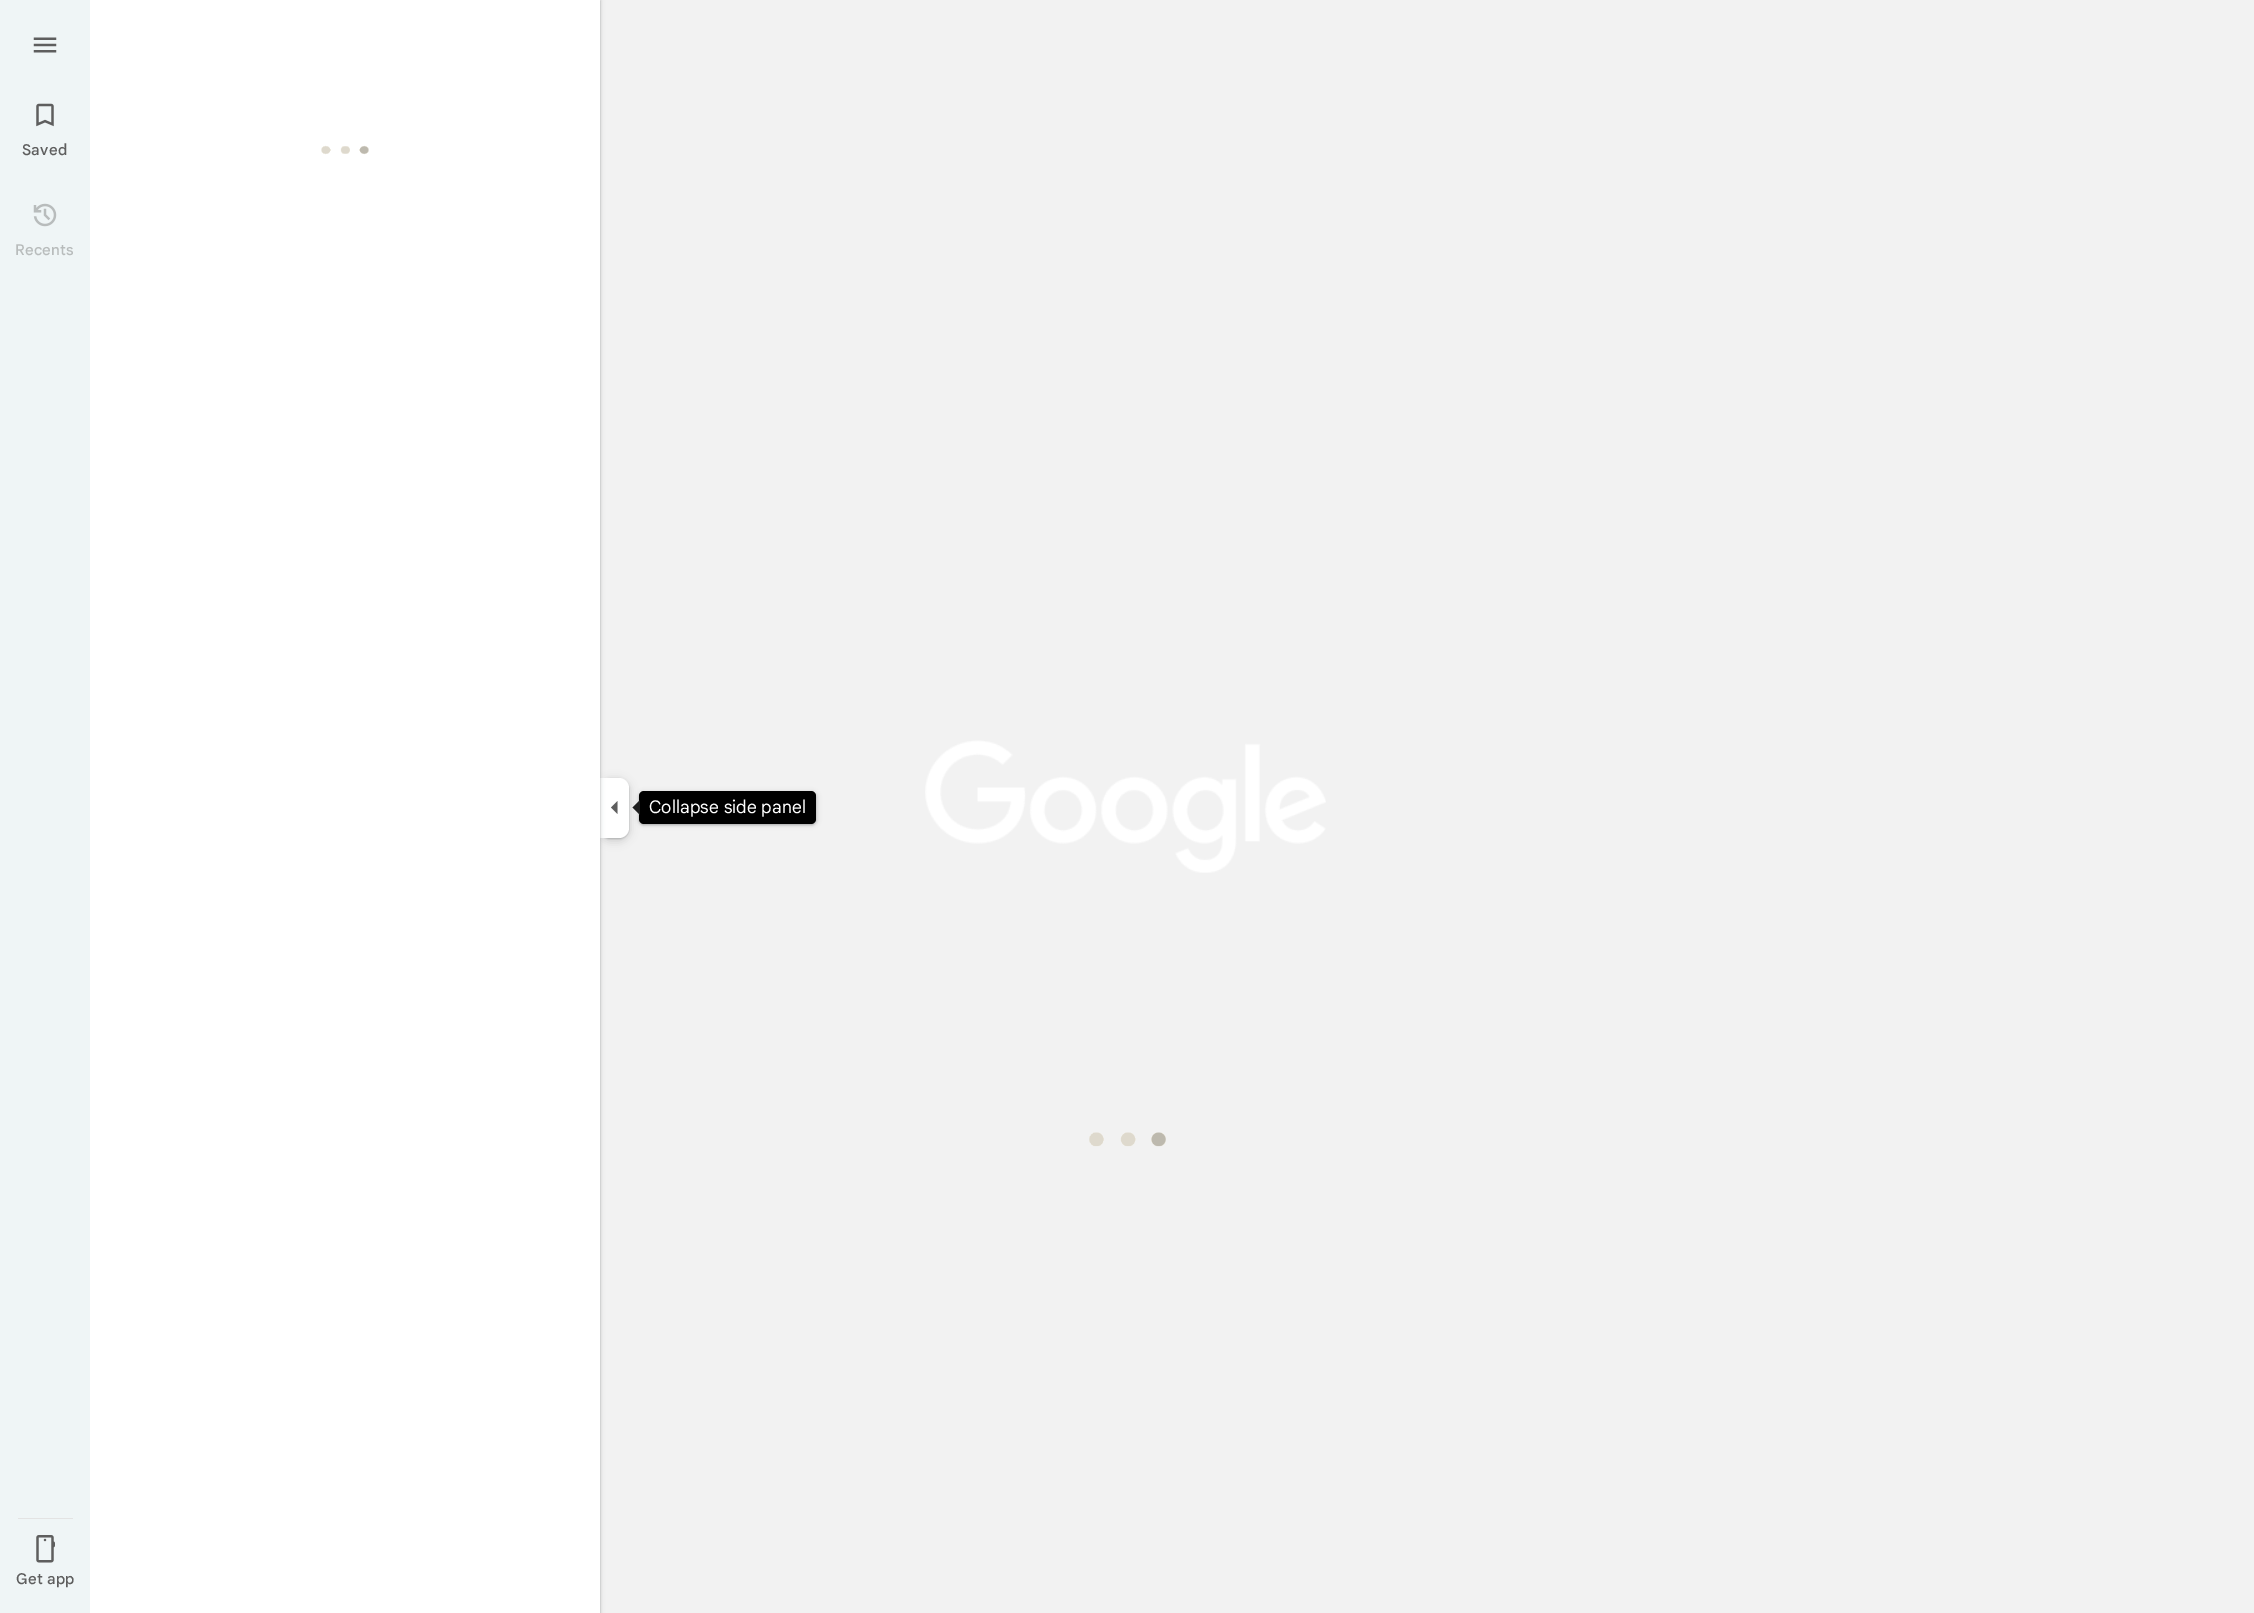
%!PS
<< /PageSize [2254 1613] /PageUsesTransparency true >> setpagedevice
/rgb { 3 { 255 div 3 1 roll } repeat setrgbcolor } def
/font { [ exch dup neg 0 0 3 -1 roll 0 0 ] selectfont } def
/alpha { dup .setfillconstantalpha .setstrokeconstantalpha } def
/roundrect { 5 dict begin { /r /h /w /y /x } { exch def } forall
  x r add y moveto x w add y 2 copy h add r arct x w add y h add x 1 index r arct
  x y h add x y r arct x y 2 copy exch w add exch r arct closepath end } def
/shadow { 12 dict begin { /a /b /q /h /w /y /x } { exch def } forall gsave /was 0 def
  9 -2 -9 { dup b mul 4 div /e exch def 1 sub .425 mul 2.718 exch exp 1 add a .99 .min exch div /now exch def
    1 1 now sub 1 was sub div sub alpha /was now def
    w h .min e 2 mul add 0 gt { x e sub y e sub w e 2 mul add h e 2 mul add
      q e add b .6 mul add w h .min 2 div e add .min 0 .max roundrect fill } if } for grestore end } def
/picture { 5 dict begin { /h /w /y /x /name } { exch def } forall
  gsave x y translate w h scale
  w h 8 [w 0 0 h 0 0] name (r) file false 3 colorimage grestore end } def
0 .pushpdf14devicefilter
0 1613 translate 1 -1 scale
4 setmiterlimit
242 242 242 rgb
0 0 2254 1613 rectfill
60 64 67 rgb
598 778 33 65 13 4 0.15 shadow
600 779 29 60 10 1 0.3 shadow
255 255 255 rgb
600 778 moveto 619 778 lineto 624.5 778 629 782.5 629 788 curveto 629 828 lineto 629 833.5 624.5 838 619 838 curveto 600 838 lineto closepath fill
60 64 67 rgb
89 0 512 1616 0 2 0.15 shadow
90 1 510 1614 0 1 0.3 shadow
239 245 246 rgb
0 0 90 1613 rectfill
(img/1.rgb) 33 37 24 16 picture
(img/2.rgb) 36 103 18 24 picture
(img/3.rgb) 33 203 24 24 picture
227 227 227 rgb
18 1518 55 1 rectfill
(img/4.rgb) 36 1535 19 28 picture
255 255 255 rgb
90 0 510 1613 rectfill
(img/5.rgb) 321 145 48 10 picture
94 94 94 rgb
617.5 814 moveto 611 807.5 lineto 617.5 801 lineto closepath fill
60 64 67 rgb
638 791 180 35 6 2 0.15 shadow
639 793 177 32 5 1 0.3 shadow
0 0 0 rgb
639 791 177 33 5 roundrect fill
31 31 31 rgb
640 800 moveto 640 815 lineto 632.5 807.5 lineto closepath fill
(img/6.rgb) 925 740 401 133 picture
(img/7.rgb) 1089 1132 77 15 picture
/GoogleSans-Medium 15 font
94 94 94 rgb
22 155 moveto 0.25 0 (Saved) ashow
184 188 188 rgb
15 255 moveto 0.25 0 (Recents) ashow
94 94 94 rgb
16 1584 moveto 0.25 0 (Get app) ashow
/GoogleSans-Regular 17.5 font
255 255 255 rgb
649 813 moveto 0.1 0 (Collapse side panel) ashow
.poppdf14devicefilter showpage
